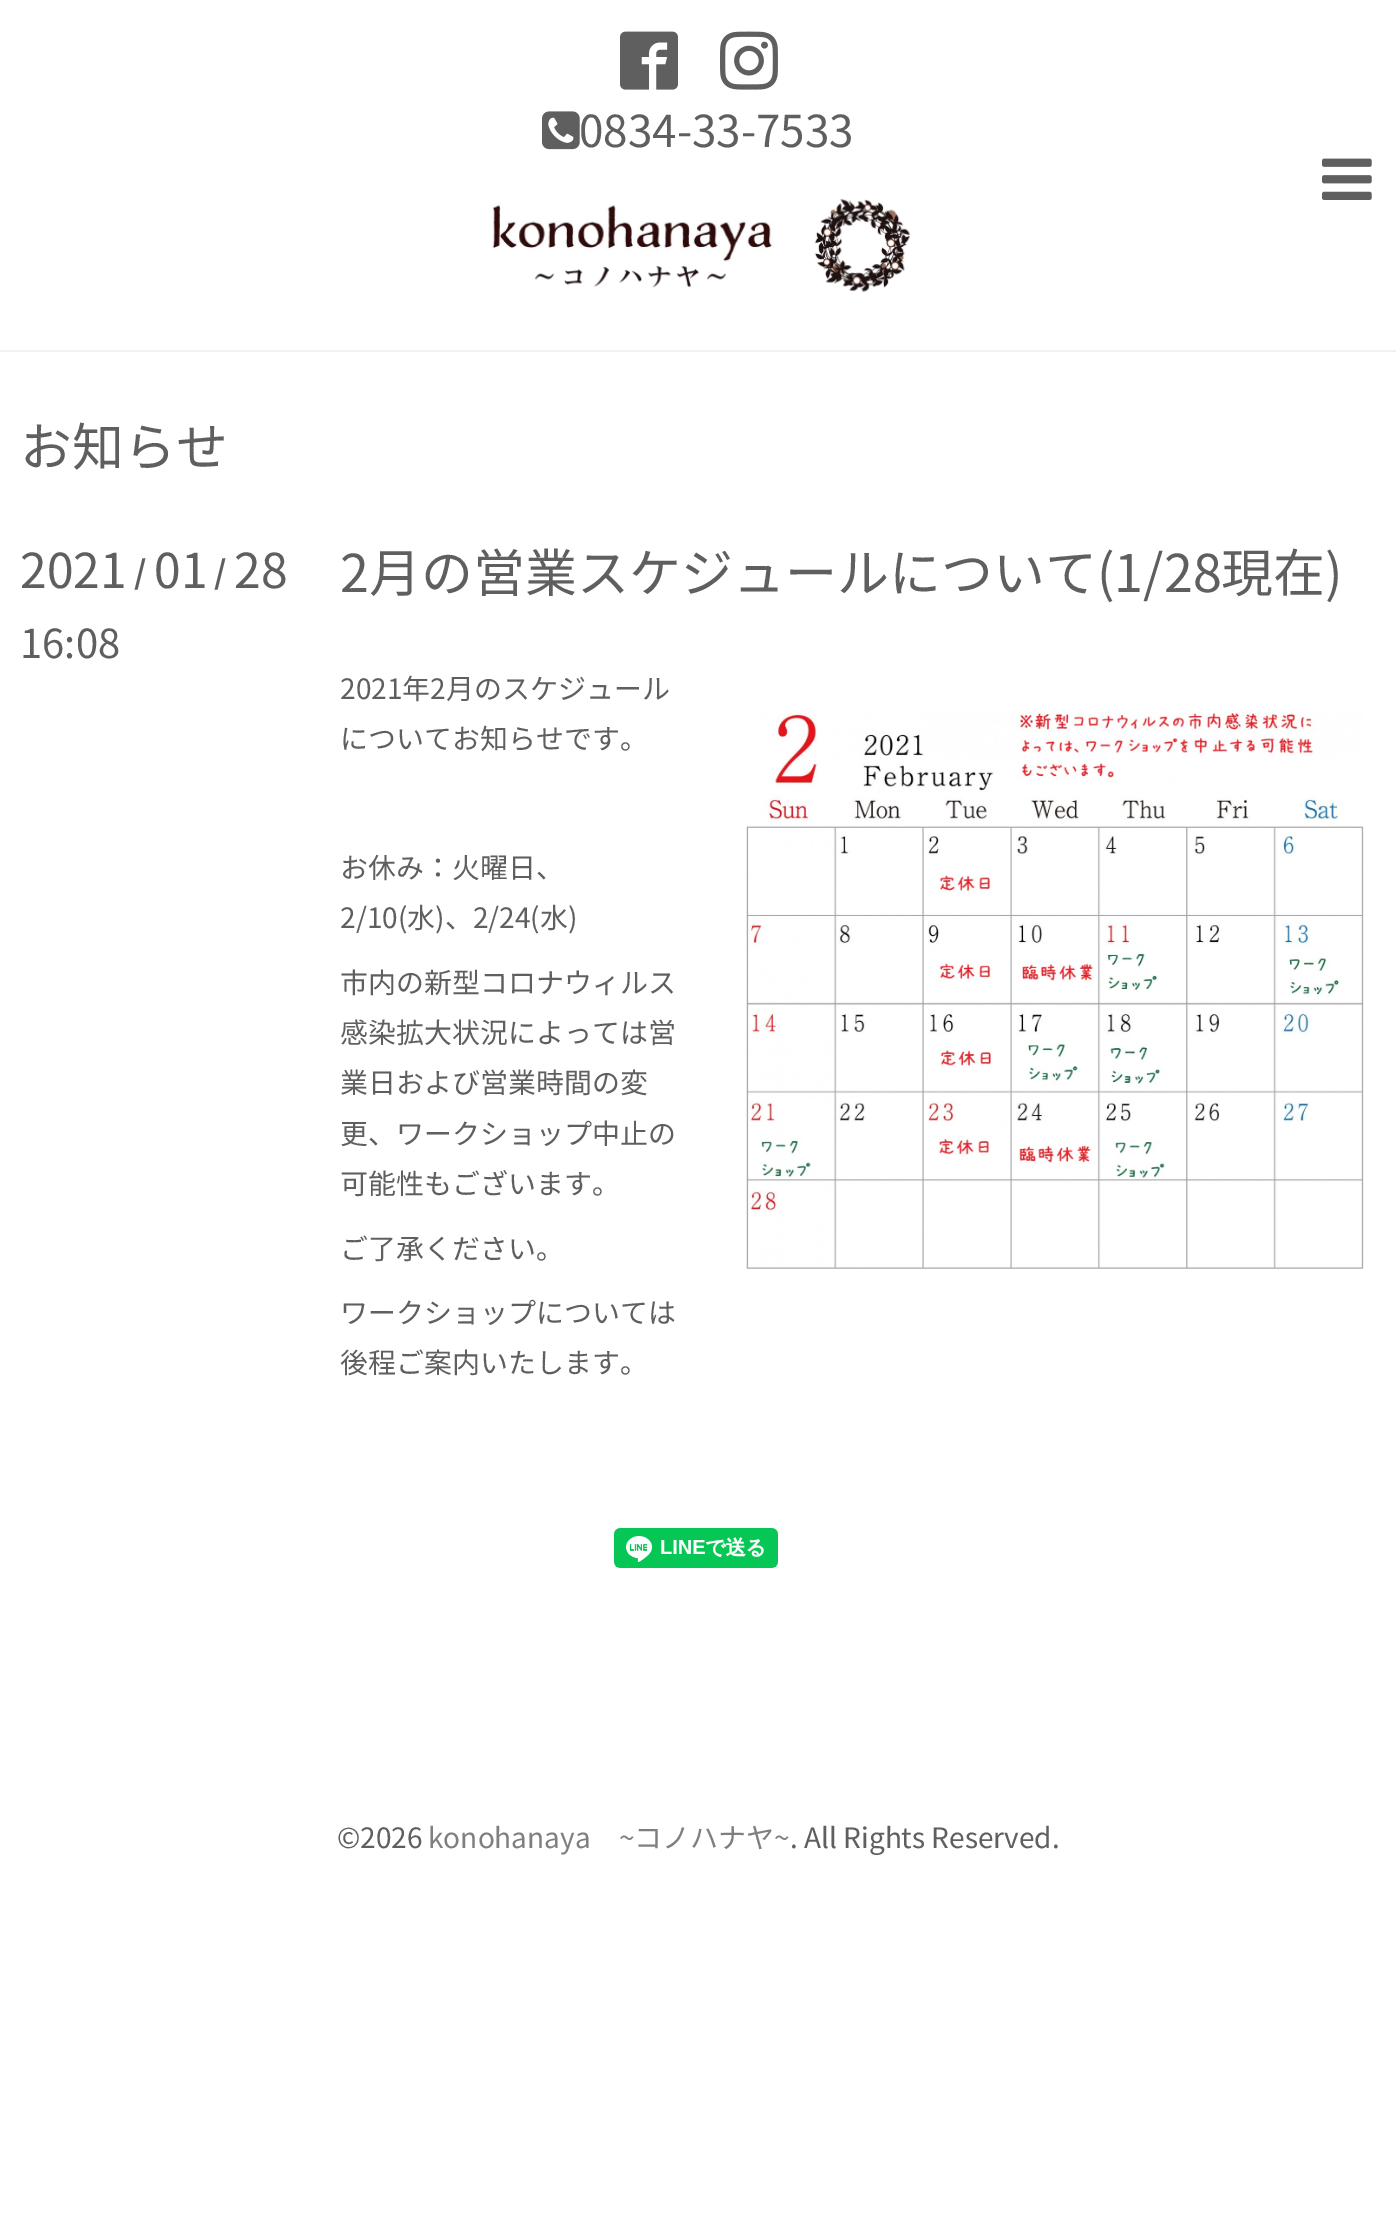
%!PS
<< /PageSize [1396 2224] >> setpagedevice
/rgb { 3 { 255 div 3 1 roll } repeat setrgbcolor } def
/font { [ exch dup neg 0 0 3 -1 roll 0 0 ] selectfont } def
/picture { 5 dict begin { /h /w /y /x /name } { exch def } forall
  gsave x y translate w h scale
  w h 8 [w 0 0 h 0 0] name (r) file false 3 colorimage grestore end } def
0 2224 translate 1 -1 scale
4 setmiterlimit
255 255 255 rgb
0 0 1396 2224 rectfill
242 242 242 rgb
0 350 1396 2 rectfill
(img/1.rgb) 620 31 58 59 picture
(img/2.rgb) 720 31 58 59 picture
(img/3.rgb) 542 111 38 39 picture
(img/4.rgb) 1322 158 50 42 picture
(img/5.rgb) 492 199 419 93 picture
(img/6.rgb) 746 710 618 559 picture
(img/7.rgb) 614 1528 164 40 picture
/NotoSansJP-Regular 44 font
95 95 95 rgb
579 147 moveto (0834-33-7533) show
/NotoSansJP-Regular 52 font
20 466 moveto (お知らせ) show
/NotoSansJP-Regular 48 font
20 588 moveto (2021) show
/NotoSansJP-Bold 32 font
134 584 moveto (/) show
/NotoSansJP-Regular 48 font
154 588 moveto (01) show
/NotoSansJP-Bold 32 font
214 584 moveto (/) show
/NotoSansJP-Regular 48 font
234 588 moveto (28) show
/NotoSansJP-Regular 40 font
20 658 moveto (16:08) show
/NotoSansJP-Regular 52 font
340 592 moveto (2月の営業スケジュールについて\(1/28現在\)) show
/NotoSansJP-Regular 28 font
[
  [(2021年2月のスケジュール) 340 699]
  [(についてお知らせです。) 340 749]
  [(お休み：火曜日、) 340 878]
  [(2/10\(水\)、2/24\(水\)) 340 928]
  [(市内の新型コロナウィルス) 340 993]
  [(感染拡大状況によっては営) 340 1043]
  [(業日および営業時間の変) 340 1093]
  [(更、ワークショップ中止の) 340 1144]
  [(可能性もございます。) 340 1194]
  [(ご了承ください。) 340 1259]
  [(ワークショップについては) 340 1323]
  [(後程ご案内いたします。) 340 1373]
  [(©2026) 337 1848]
] { aload pop moveto show } forall
127 127 127 rgb
428 1848 moveto (konohanaya　~コノハナヤ~) show
95 95 95 rgb
790 1848 moveto (. All Rights Reserved.) show
showpage
